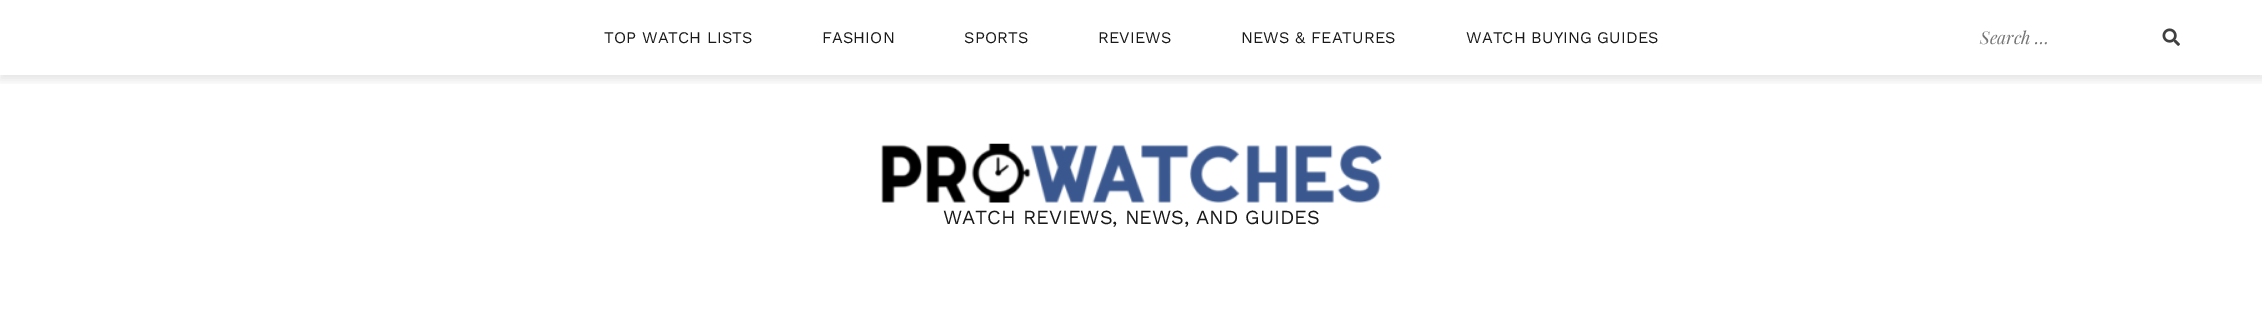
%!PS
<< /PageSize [2262 327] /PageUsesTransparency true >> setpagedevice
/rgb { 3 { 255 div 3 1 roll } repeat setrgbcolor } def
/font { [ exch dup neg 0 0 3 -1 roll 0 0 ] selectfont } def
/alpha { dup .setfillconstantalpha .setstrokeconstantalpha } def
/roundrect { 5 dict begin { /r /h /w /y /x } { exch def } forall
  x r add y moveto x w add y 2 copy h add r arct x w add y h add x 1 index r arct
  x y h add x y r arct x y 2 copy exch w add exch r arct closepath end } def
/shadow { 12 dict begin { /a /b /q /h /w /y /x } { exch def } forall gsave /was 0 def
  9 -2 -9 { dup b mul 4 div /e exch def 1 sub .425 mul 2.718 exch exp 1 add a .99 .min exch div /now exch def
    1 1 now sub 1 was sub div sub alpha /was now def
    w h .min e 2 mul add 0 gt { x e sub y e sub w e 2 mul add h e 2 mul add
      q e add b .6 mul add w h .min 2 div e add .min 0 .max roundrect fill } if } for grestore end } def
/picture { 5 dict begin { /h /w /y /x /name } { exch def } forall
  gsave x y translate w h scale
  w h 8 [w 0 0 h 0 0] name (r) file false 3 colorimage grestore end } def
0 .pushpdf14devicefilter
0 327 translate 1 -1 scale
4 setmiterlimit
255 255 255 rgb
0 0 2262 327 rectfill
gsave
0 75 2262 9 rectclip
0 0 0 rgb
0 5 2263 75 0 4.5 0.1 shadow
grestore
(img/1.rgb) 2162 28 18 18 picture
(img/2.rgb) 881 143 501 60 picture
/WorkSans-Regular 16.25 font
25 25 25 rgb
604 43 moveto 0.1 0 (TOP WATCH LISTS) ashow
822 43 moveto 0.1 0 (FASHION) ashow
964 43 moveto 0.1 0 (SPORTS) ashow
1098 43 moveto 0.1 0 (REVIEWS) ashow
1241 43 moveto 0.1 0 (NEWS & FEATURES) ashow
1466 43 moveto 0.1 0 (WATCH BUYING GUIDES) ashow
/PlayfairDisplay-Italic 17.5 font
117 117 117 rgb
1980 44 moveto (Search …) show
/WorkSans-Regular 20 font
25 25 25 rgb
943 224 moveto (WATCH REVIEWS, NEWS, AND GUIDES) show
.poppdf14devicefilter showpage
